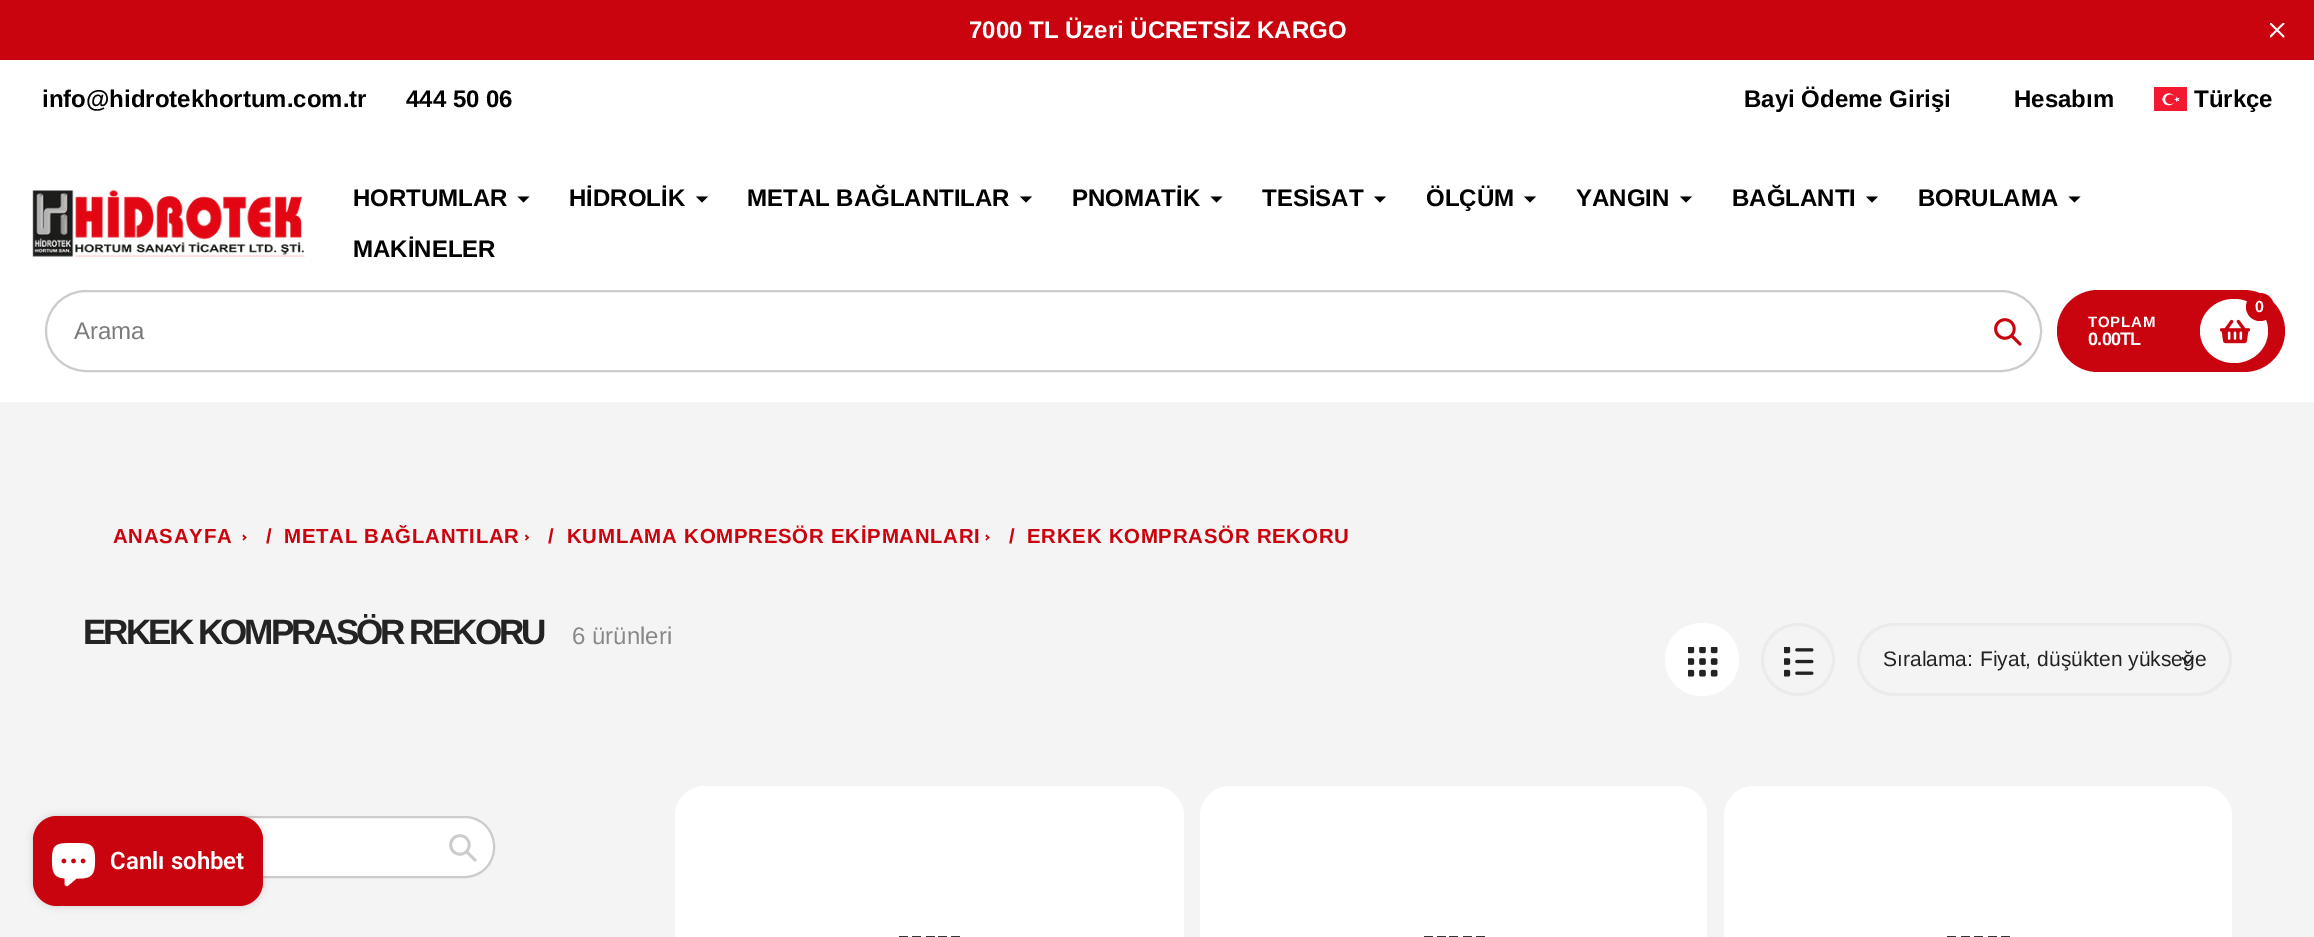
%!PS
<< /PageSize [2314 937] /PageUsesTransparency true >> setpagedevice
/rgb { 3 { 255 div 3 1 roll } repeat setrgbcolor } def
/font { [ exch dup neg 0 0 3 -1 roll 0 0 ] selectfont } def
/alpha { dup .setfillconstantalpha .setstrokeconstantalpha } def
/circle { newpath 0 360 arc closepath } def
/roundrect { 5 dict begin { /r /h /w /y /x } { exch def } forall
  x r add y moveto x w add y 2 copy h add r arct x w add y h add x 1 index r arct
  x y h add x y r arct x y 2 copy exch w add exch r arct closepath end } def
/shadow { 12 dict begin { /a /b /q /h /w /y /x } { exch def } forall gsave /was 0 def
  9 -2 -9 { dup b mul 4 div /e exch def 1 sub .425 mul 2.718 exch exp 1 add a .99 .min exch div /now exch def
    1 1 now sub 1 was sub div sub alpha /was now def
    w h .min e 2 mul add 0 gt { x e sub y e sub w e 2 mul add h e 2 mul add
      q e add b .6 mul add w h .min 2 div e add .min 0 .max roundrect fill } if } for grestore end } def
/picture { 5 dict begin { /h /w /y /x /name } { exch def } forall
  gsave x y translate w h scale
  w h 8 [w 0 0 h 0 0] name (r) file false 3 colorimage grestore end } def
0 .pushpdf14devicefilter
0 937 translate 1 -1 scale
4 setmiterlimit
244 244 244 rgb
0 0 2314 937 rectfill
202 4 14 rgb
0 0 2314 60 rectfill
(img/1.rgb) 2270 23 15 15 picture
255 255 255 rgb
0 60 2314 342 rectfill
(img/2.rgb) 2154 87 33 24 picture
(img/3.rgb) 32 190 273 67 picture
0 0 0 rgb
529.5 196.5 moveto 523.5 202.5 lineto 517.5 196.5 lineto fill
708 196.5 moveto 702 202.5 lineto 696 196.5 lineto fill
1032 196.5 moveto 1026 202.5 lineto 1020 196.5 lineto fill
1222.5 196.5 moveto 1216.5 202.5 lineto 1210.5 196.5 lineto fill
1386 196.5 moveto 1380 202.5 lineto 1374 196.5 lineto fill
1536 196.5 moveto 1530 202.5 lineto 1524 196.5 lineto fill
1692 196.5 moveto 1686 202.5 lineto 1680 196.5 lineto fill
1878 196.5 moveto 1872 202.5 lineto 1866 196.5 lineto fill
2080.5 196.5 moveto 2074.5 202.5 lineto 2068.5 196.5 lineto fill
204 204 204 rgb
2 setlinewidth
46 291 1995 80 40 roundrect stroke
(img/4.rgb) 1994 318 28 28 picture
202 4 14 rgb
2057 290 228 82 41 roundrect fill
255 255 255 rgb
2234 299 moveto 2253 299 2268 313.5 2268 331 curveto 2268 348.5 2253 363 2234 363 curveto 2215 363 2200 348.5 2200 331 curveto 2200 313.5 2215 299 2234 299 curveto closepath fill
(img/5.rgb) 2220 319 30 25 picture
202 4 14 rgb
2260 307 14 circle fill
243.5 534.5 moveto 246.5 537.5 lineto 245.5 538.5 lineto 242.5 536 lineto closepath fill
245.5 536.5 moveto 246.5 537.5 lineto 243.5 540.5 lineto 242.5 539.5 lineto closepath fill
526 534.5 moveto 529 537.5 lineto 528 538.5 lineto 525 536 lineto closepath fill
528 536.5 moveto 529 537.5 lineto 526 540.5 lineto 525 539.5 lineto closepath fill
986.5 534.5 moveto 989.5 537.5 lineto 988.5 538.5 lineto 985.5 536 lineto closepath fill
988.5 536.5 moveto 989.5 537.5 lineto 986.5 540.5 lineto 985.5 539.5 lineto closepath fill
255 255 255 rgb
1665 623 74 73 36.5 roundrect fill
(img/6.rgb) 1688 647 30 30 picture
235 235 235 rgb
3 setlinewidth
1762.5 624.5 71 70 35 roundrect stroke
(img/7.rgb) 1784 647 30 30 picture
1858.5 624.5 372 70 35 roundrect stroke
(img/8.rgb) 2181 656 13 8 picture
255 255 255 rgb
84 817 410 60 29 roundrect gsave fill grestore
204 204 204 rgb
2 setlinewidth
stroke
(img/9.rgb) 449 834 28 28 picture
255 255 255 rgb
675 786 509 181 30 roundrect fill
[
  [899 936 9 1 51 51 51]
  [912 936 9 1 51 51 51]
  [926 936 9 1 51 51 51]
  [938 936 9 1 51 51 51]
  [951 936 9 1 51 51 51]
] { aload pop rgb rectfill } forall
255 255 255 rgb
1200 786 507 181 30 roundrect fill
[
  [1424 936 9 1 51 51 51]
  [1437 936 9 1 51 51 51]
  [1449 936 9 1 51 51 51]
  [1463 936 9 1 51 51 51]
  [1476 936 9 1 51 51 51]
] { aload pop rgb rectfill } forall
255 255 255 rgb
1724 786 508 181 30 roundrect fill
[
  [1947 936 9 1 51 51 51]
  [1961 936 9 1 51 51 51]
  [1974 936 9 1 51 51 51]
  [1988 936 9 1 51 51 51]
  [2001 936 9 1 51 51 51]
] { aload pop rgb rectfill } forall
0 0 0 rgb
33 816 230 90 24 4 0.15 shadow
202 4 14 rgb
33 816 230 90 24 roundrect fill
(img/10.rgb) 51 843 45 44 picture
/LiberationSans-Bold 24 font
255 255 255 rgb
969 38 moveto (7000 TL Üzeri ÜCRETSİZ KARGO) show
0 0 0 rgb
[
  [(info@hidrotekhortum.com.tr) 42 107]
  [(444 50 06) 406 107]
  [(Bayi Ödeme Girişi) 1744 107]
  [(Hesabım) 2014 107]
  [(Türkçe) 2194 107]
  [(HORTUMLAR) 353 206]
  [(HİDROLİK) 569 206]
  [(METAL BAĞLANTILAR) 747 206]
  [(PNOMATİK) 1072 206]
  [(TESİSAT) 1262 206]
  [(ÖLÇÜM) 1426 206]
  [(YANGIN) 1576 206]
  [(BAĞLANTI) 1732 206]
  [(BORULAMA) 1918 206]
  [(MAKİNELER) 353 257]
] { aload pop moveto show } forall
/LiberationSans-Regular 24 font
123 123 123 rgb
74 339 moveto (Arama) show
/LiberationSans-Bold 16 font
255 255 255 rgb
2255 312 moveto (0) show
/LiberationSans-Bold 15 font
2088 327 moveto 0.75 0 (TOPLAM) ashow
/LiberationSans-Bold 18 font
2088 345 moveto -0.75 0 (0.00TL) ashow
/LiberationSans-Bold 20.4 font
202 4 14 rgb
113 543 moveto 0.75 0 (ANASAYFA) ashow
266 543 moveto 0.75 0 (/) ashow
284 543 moveto 0.75 0 (METAL BAĞLANTILAR) ashow
548 543 moveto 0.75 0 (/) ashow
567 543 moveto 0.75 0 (KUMLAMA KOMPRESÖR EKİPMANLARI) ashow
1009 543 moveto 0.75 0 (/) ashow
1027 543 moveto 0.75 0 (ERKEK KOMPRASÖR REKORU) ashow
/LiberationSans-Bold 35.1 font
35 35 35 rgb
83 644 moveto -3 0 (ERKEK KOMPRASÖR REKORU) ashow
/LiberationSans-Regular 24 font
136 136 136 rgb
572 644 moveto (6 ürünleri) show
/LiberationSans-Regular 21 font
35 35 35 rgb
1883 666 moveto (Sıralama:) show
1980 666 moveto (Fiyat, düşükten yükseğe) show
/Roboto-SemiBold 24 font
255 255 255 rgb
110 869 moveto (Canlı sohbet) show
.poppdf14devicefilter showpage
